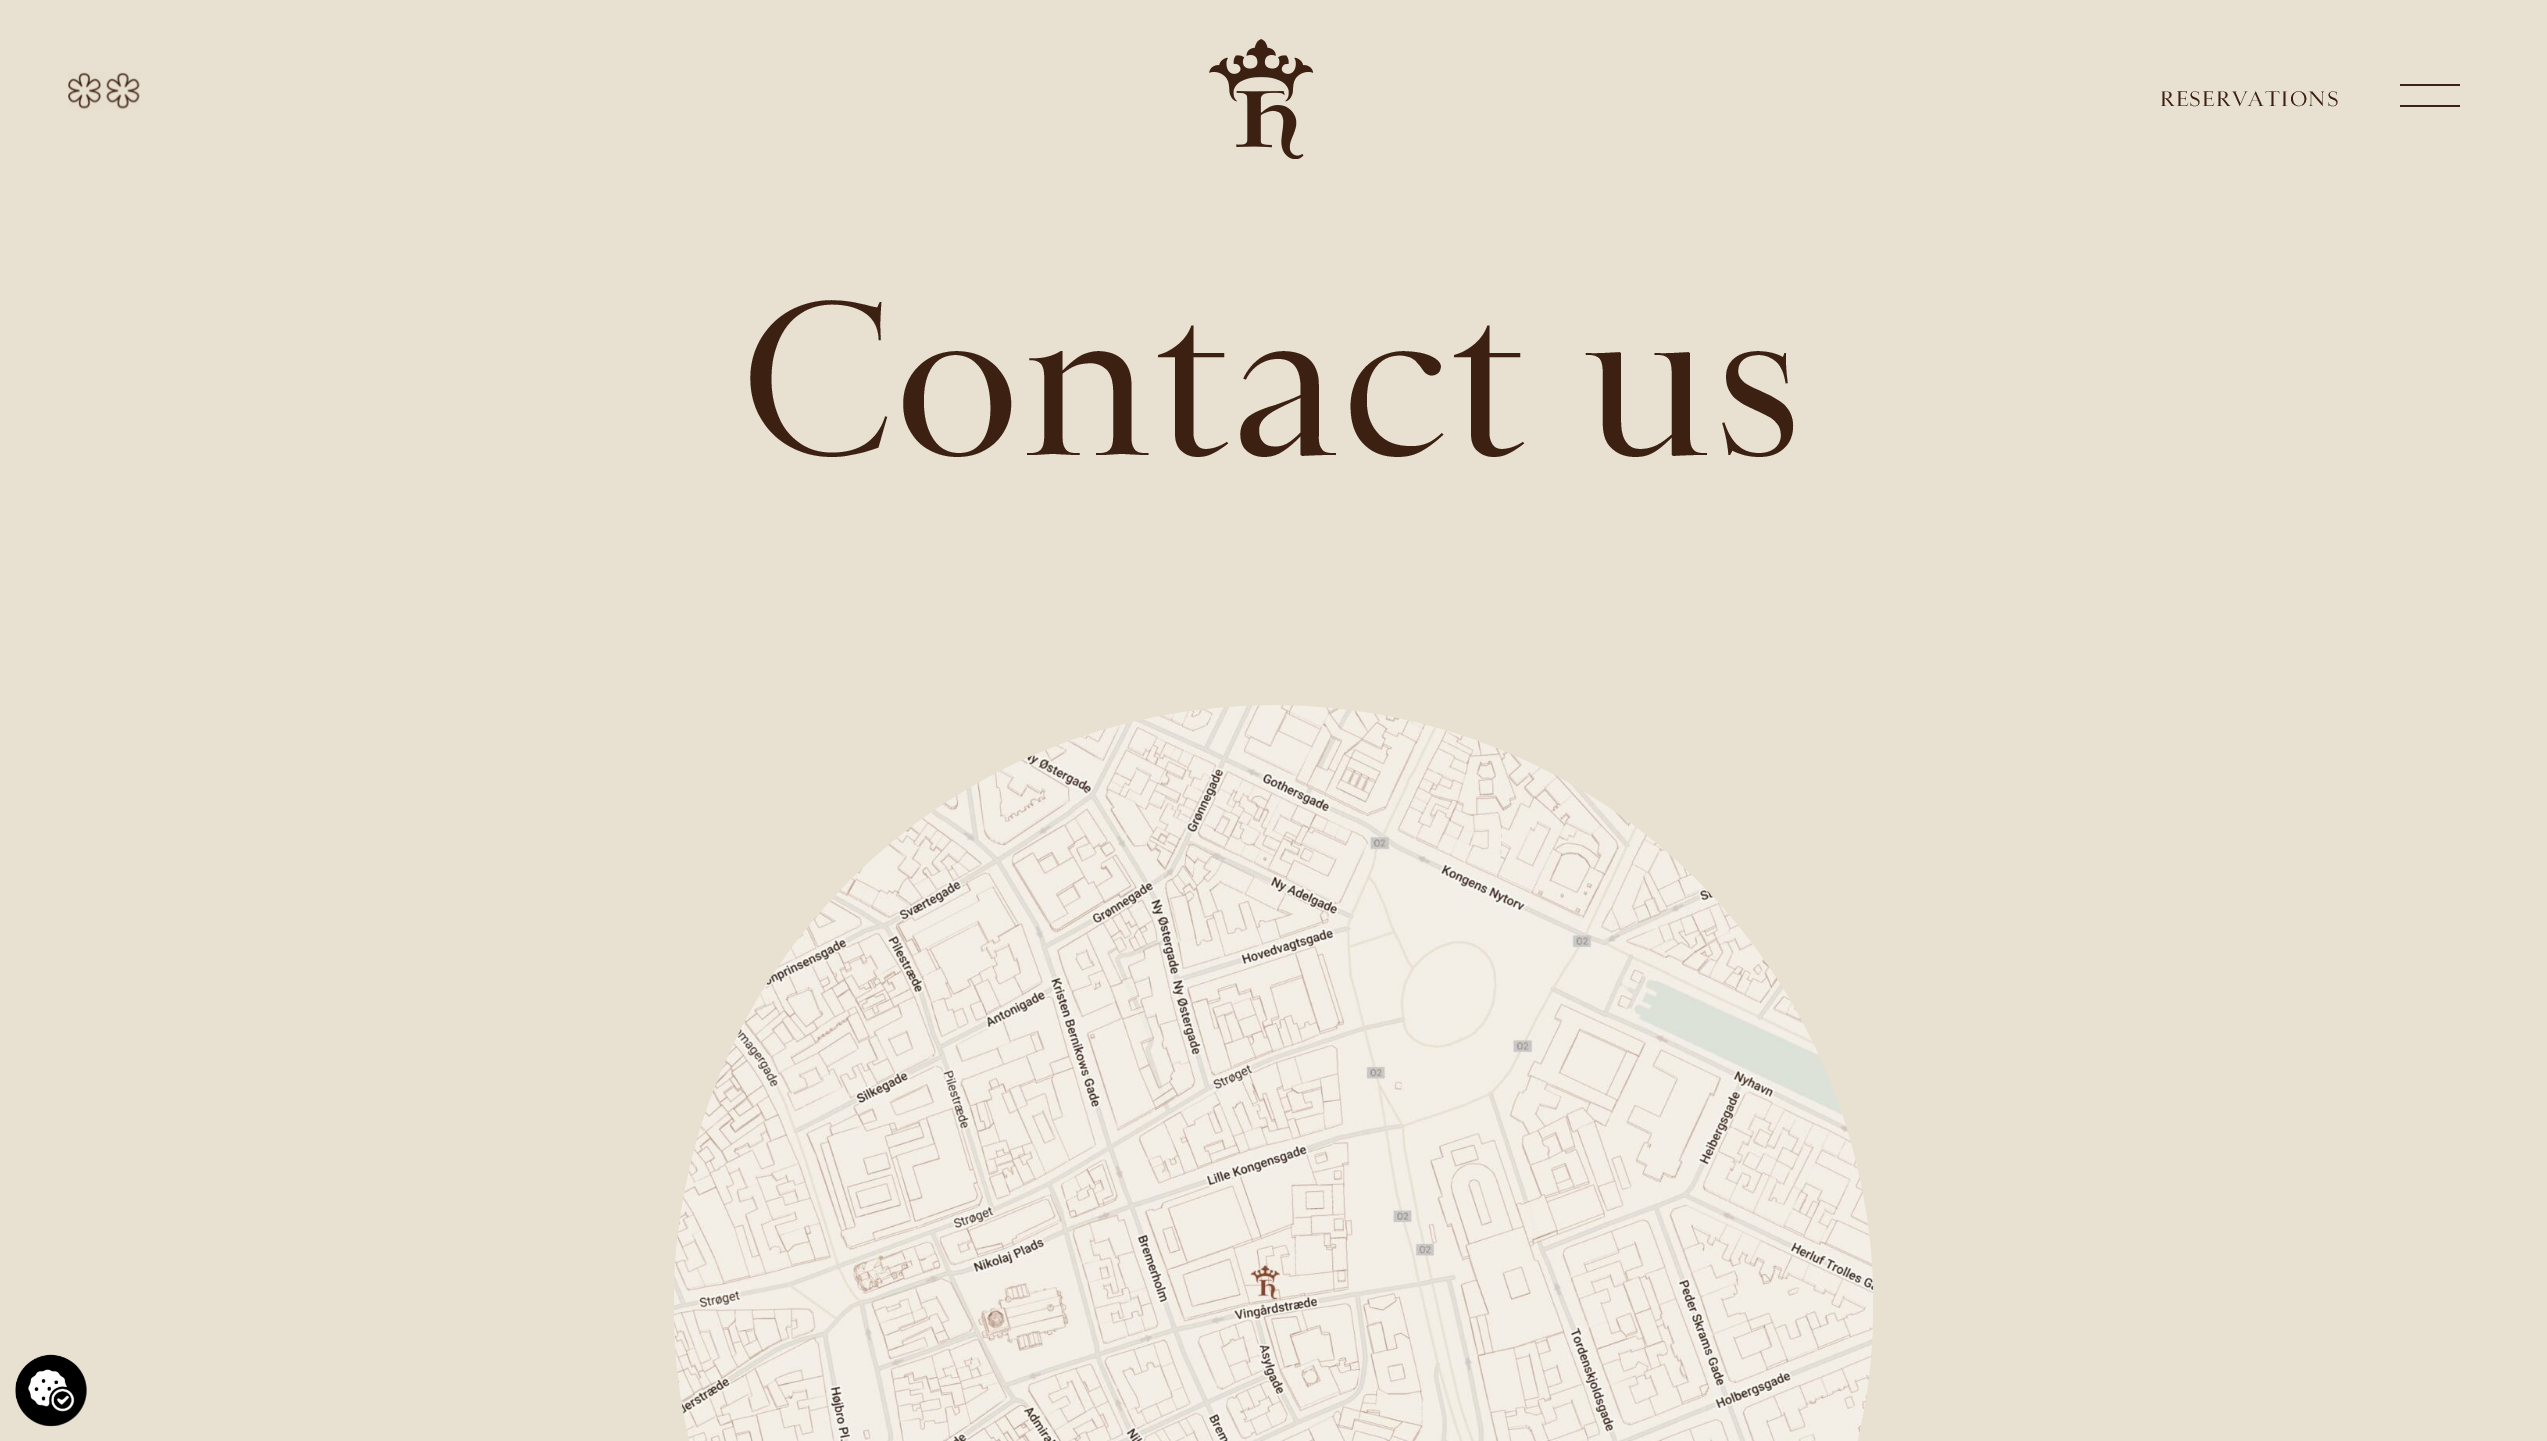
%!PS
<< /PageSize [2547 1441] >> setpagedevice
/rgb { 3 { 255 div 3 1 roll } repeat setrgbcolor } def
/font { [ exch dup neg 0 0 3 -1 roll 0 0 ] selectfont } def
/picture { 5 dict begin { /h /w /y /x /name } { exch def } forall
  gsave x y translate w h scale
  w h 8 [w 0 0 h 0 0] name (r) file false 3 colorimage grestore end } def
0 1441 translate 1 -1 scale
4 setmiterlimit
232 224 208 rgb
0 0 2547 1441 rectfill
(img/1.rgb) 68 72 72 38 picture
(img/2.rgb) 1209 39 105 120 picture
60 32 18 rgb
2400 84 60 2 rectfill
2400 105 60 2 rectfill
(img/3.rgb) 674 705 1200 736 picture
(img/4.rgb) 15 1354 72 73 picture
/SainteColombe-Regular 19.5 font
2160 106 moveto 1.25 0 (RESERVATIONS) ashow
/SainteColombe-Regular 204 font
740 455 moveto 0.5 0 (Contact us) ashow
showpage
